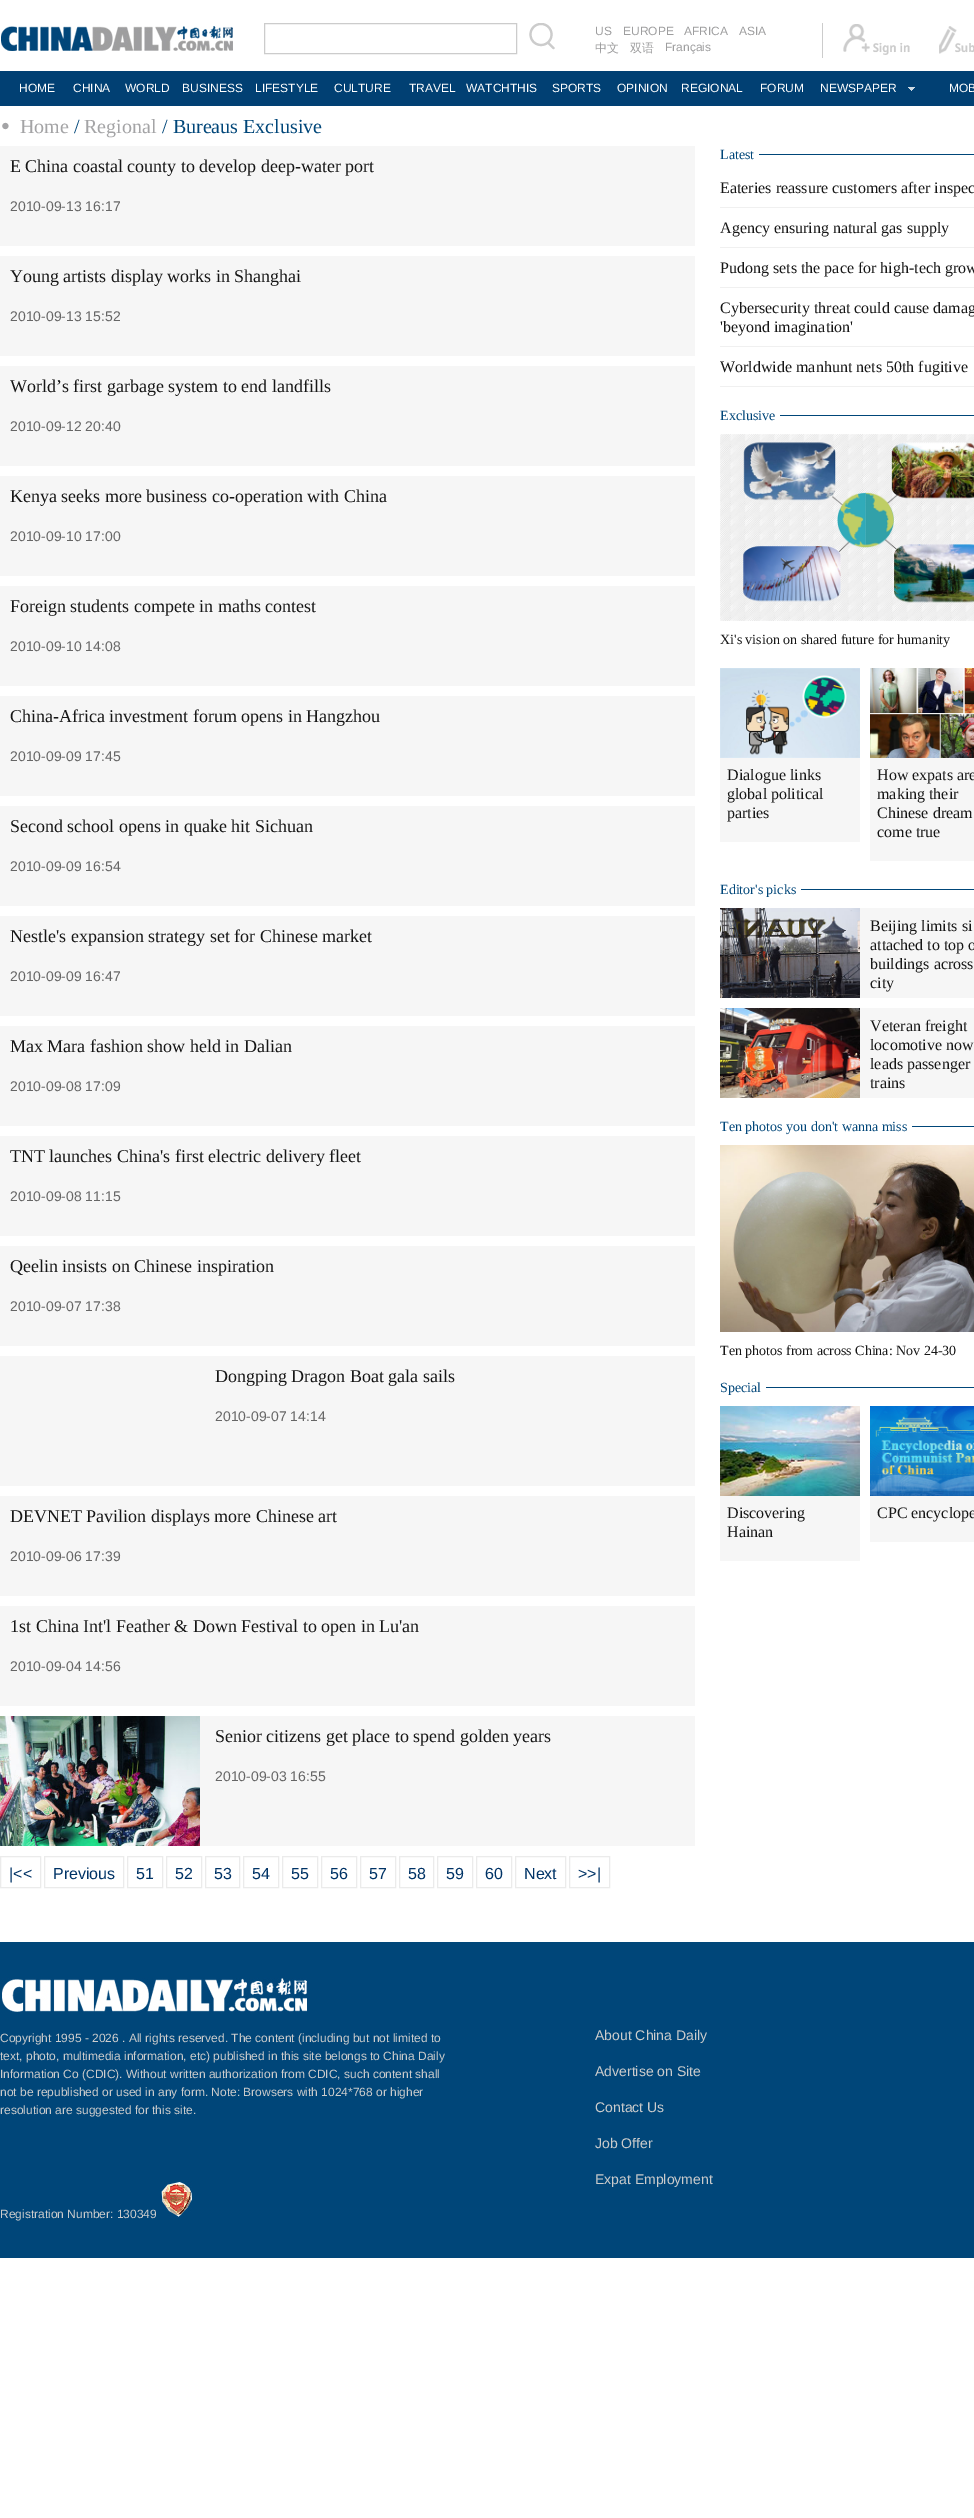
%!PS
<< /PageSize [974 2518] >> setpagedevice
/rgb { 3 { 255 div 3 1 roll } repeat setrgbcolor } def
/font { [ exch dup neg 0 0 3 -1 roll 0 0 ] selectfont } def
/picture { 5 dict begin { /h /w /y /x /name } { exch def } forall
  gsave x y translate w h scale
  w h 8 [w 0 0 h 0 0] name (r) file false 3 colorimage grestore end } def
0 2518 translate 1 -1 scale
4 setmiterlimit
255 255 255 rgb
0 0 974 2518 rectfill
(img/1.rgb) 1 26 232 25 picture
204 204 204 rgb
264.5 23.5 252 30 rectstroke
(img/2.rgb) 529 23 26 27 picture
822 23 1 35 rectfill
(img/3.rgb) 843 24 67 31 picture
(img/4.rgb) 939 26 35 28 picture
1 64 115 rgb
0 71 974 35 rectfill
(img/5.rgb) 908 87 7 4 picture
(img/6.rgb) 2 122 7 8 picture
[
  [0 146 695 100 246 246 246]
  [0 256 695 100 246 246 246]
  [0 366 695 100 246 246 246]
  [0 476 695 100 246 246 246]
  [0 586 695 100 246 246 246]
  [0 696 695 100 246 246 246]
  [0 806 695 100 246 246 246]
  [0 916 695 100 246 246 246]
  [0 1026 695 100 246 246 246]
  [0 1136 695 100 246 246 246]
  [0 1246 695 100 246 246 246]
  [0 1356 695 130 246 246 246]
  [0 1496 695 100 246 246 246]
  [0 1606 695 100 246 246 246]
  [200 1716 495 130 246 246 246]
] { aload pop rgb rectfill } forall
(img/7.rgb) 0 1716 200 130 picture
235 235 235 rgb
0.5 1856.5 40 31 rectstroke
44.5 1856.5 79 31 rectstroke
127.5 1856.5 35 31 rectstroke
166.5 1856.5 35 31 rectstroke
205.5 1856.5 34 31 rectstroke
243.5 1856.5 35 31 rectstroke
282.5 1856.5 35 31 rectstroke
321.5 1856.5 35 31 rectstroke
360.5 1856.5 35 31 rectstroke
399.5 1856.5 34 31 rectstroke
437.5 1856.5 35 31 rectstroke
476.5 1856.5 35 31 rectstroke
515.5 1856.5 50 31 rectstroke
569.5 1856.5 40 31 rectstroke
[
  [759 154 215 1 0 70 121]
  [720 207 254 1 240 240 240]
  [720 247 254 1 240 240 240]
  [720 287 254 1 240 240 240]
  [720 346 254 1 240 240 240]
  [720 386 254 1 240 240 240]
  [780 415 194 1 0 70 121]
] { aload pop rgb rectfill } forall
(img/8.rgb) 720 434 254 187 picture
(img/9.rgb) 720 668 140 90 picture
246 246 246 rgb
720 758 140 84 rectfill
(img/10.rgb) 870 668 104 90 picture
[
  [870 758 104 103 246 246 246]
  [801 889 173 1 0 70 121]
  [860 908 114 90 246 246 246]
] { aload pop rgb rectfill } forall
(img/11.rgb) 720 908 140 90 picture
860 1008 114 90 rectfill
(img/12.rgb) 720 1008 140 90 picture
0 70 121 rgb
912 1126 62 1 rectfill
(img/13.rgb) 720 1145 254 187 picture
766 1387 208 1 rectfill
(img/14.rgb) 720 1406 140 90 picture
246 246 246 rgb
720 1496 140 65 rectfill
(img/15.rgb) 870 1406 104 90 picture
870 1496 104 46 rectfill
0 70 121 rgb
0 1942 974 316 rectfill
(img/16.rgb) 2 1978 305 34 picture
(img/17.rgb) 161 2181 31 37 picture
/LiberationSans-Regular 12 font
158 158 159 rgb
[
  [(US) 595 35]
  [(EUROPE) 623 35]
  [(AFRICA) 684 35]
  [(ASIA) 739 35]
] { aload pop moveto show } forall
/WenQuanYiZenHei-Medium 12 font
595 52 moveto (中文) show
630 52 moveto (双语) show
/LiberationSans-Regular 12 font
665 51 moveto (Français) show
255 255 255 rgb
[
  [(HOME) 19 92]
  [(CHINA) 73 92]
  [(WORLD) 125 92]
  [(BUSINESS) 182 92]
  [(LIFESTYLE) 255 92]
  [(CULTURE) 334 92]
  [(TRAVEL) 409 92]
  [(WATCHTHIS) 466 92]
  [(SPORTS) 552 92]
  [(OPINION) 617 92]
  [(REGIONAL) 681 92]
  [(FORUM) 760 92]
  [(NEWSPAPER) 820 92]
  [(MOB) 949 92]
] { aload pop moveto show } forall
/LiberationSerif-Regular 20 font
164 164 166 rgb
20 133 moveto (Home) show
0 70 121 rgb
74 133 moveto (/) show
164 164 166 rgb
84 133 moveto (Regional) show
0 70 121 rgb
162 133 moveto (/ Bureaus Exclusive) show
/LiberationSerif-Regular 18 font
22 22 22 rgb
10 172 moveto (E China coastal county to develop deep-water port) show
/LiberationSans-Regular 14 font
102 102 102 rgb
10 211 moveto (2010-09-13 16:17) show
/LiberationSerif-Regular 18 font
22 22 22 rgb
10 282 moveto (Young artists display works in Shanghai) show
/LiberationSans-Regular 14 font
102 102 102 rgb
10 321 moveto (2010-09-13 15:52) show
/LiberationSerif-Regular 18 font
22 22 22 rgb
10 392 moveto (World’s first garbage system to end landfills) show
/LiberationSans-Regular 14 font
102 102 102 rgb
10 431 moveto (2010-09-12 20:40) show
/LiberationSerif-Regular 18 font
22 22 22 rgb
10 502 moveto (Kenya seeks more business co-operation with China) show
/LiberationSans-Regular 14 font
102 102 102 rgb
10 541 moveto (2010-09-10 17:00) show
/LiberationSerif-Regular 18 font
22 22 22 rgb
10 612 moveto (Foreign students compete in maths contest) show
/LiberationSans-Regular 14 font
102 102 102 rgb
10 651 moveto (2010-09-10 14:08) show
/LiberationSerif-Regular 18 font
22 22 22 rgb
10 722 moveto (China-Africa investment forum opens in Hangzhou) show
/LiberationSans-Regular 14 font
102 102 102 rgb
10 761 moveto (2010-09-09 17:45) show
/LiberationSerif-Regular 18 font
22 22 22 rgb
10 832 moveto (Second school opens in quake hit Sichuan) show
/LiberationSans-Regular 14 font
102 102 102 rgb
10 871 moveto (2010-09-09 16:54) show
/LiberationSerif-Regular 18 font
22 22 22 rgb
10 942 moveto (Nestle's expansion strategy set for Chinese market) show
/LiberationSans-Regular 14 font
102 102 102 rgb
10 981 moveto (2010-09-09 16:47) show
/LiberationSerif-Regular 18 font
22 22 22 rgb
10 1052 moveto (Max Mara fashion show held in Dalian) show
/LiberationSans-Regular 14 font
102 102 102 rgb
10 1091 moveto (2010-09-08 17:09) show
/LiberationSerif-Regular 18 font
22 22 22 rgb
10 1162 moveto (TNT launches China's first electric delivery fleet) show
/LiberationSans-Regular 14 font
102 102 102 rgb
10 1201 moveto (2010-09-08 11:15) show
/LiberationSerif-Regular 18 font
22 22 22 rgb
10 1272 moveto (Qeelin insists on Chinese inspiration) show
/LiberationSans-Regular 14 font
102 102 102 rgb
10 1311 moveto (2010-09-07 17:38) show
/LiberationSerif-Regular 18 font
22 22 22 rgb
215 1382 moveto (Dongping Dragon Boat gala sails) show
/LiberationSans-Regular 14 font
102 102 102 rgb
215 1421 moveto (2010-09-07 14:14) show
/LiberationSerif-Regular 18 font
22 22 22 rgb
10 1522 moveto (DEVNET Pavilion displays more Chinese art) show
/LiberationSans-Regular 14 font
102 102 102 rgb
10 1561 moveto (2010-09-06 17:39) show
/LiberationSerif-Regular 18 font
22 22 22 rgb
10 1632 moveto (1st China Int'l Feather & Down Festival to open in Lu'an) show
/LiberationSans-Regular 14 font
102 102 102 rgb
10 1671 moveto (2010-09-04 14:56) show
/LiberationSerif-Regular 18 font
22 22 22 rgb
215 1742 moveto (Senior citizens get place to spend golden years) show
/LiberationSans-Regular 14 font
102 102 102 rgb
215 1781 moveto (2010-09-03 16:55) show
/LiberationSans-Regular 16 font
0 51 102 rgb
[
  [(|<<) 9 1879]
  [(Previous) 53 1879]
  [(51) 136 1879]
  [(52) 175 1879]
  [(53) 214 1879]
  [(54) 252 1879]
  [(55) 291 1879]
  [(56) 330 1879]
  [(57) 369 1879]
  [(58) 408 1879]
  [(59) 446 1879]
  [(60) 485 1879]
  [(Next) 524 1879]
  [(>>|) 578 1879]
] { aload pop moveto show } forall
/LiberationSerif-Regular 14 font
0 70 121 rgb
720 159 moveto (Latest) show
/LiberationSerif-Regular 16 font
22 22 22 rgb
[
  [(Eateries reassure customers after inspec) 720 193]
  [(Agency ensuring natural gas supply) 720 233]
  [(Pudong sets the pace for high-tech grow) 720 273]
  [(Cybersecurity threat could cause damag) 720 313]
  [('beyond imagination') 720 332]
  [(Worldwide manhunt nets 50th fugitive) 720 372]
] { aload pop moveto show } forall
/LiberationSerif-Regular 14 font
0 70 121 rgb
720 420 moveto (Exclusive) show
22 22 22 rgb
720 644 moveto (Xi's vision on shared future for humanity) show
/LiberationSerif-Regular 16 font
[
  [(Dialogue links) 727 780]
  [(global political) 727 799]
  [(parties) 727 818]
  [(How expats are) 877 780]
  [(making their) 877 799]
  [(Chinese dream) 877 818]
  [(come true) 877 837]
] { aload pop moveto show } forall
/LiberationSerif-Regular 14 font
0 70 121 rgb
720 894 moveto (Editor's picks) show
/LiberationSerif-Regular 16 font
22 22 22 rgb
[
  [(Beijing limits si) 870 931]
  [(attached to top o) 870 950]
  [(buildings across) 870 969]
  [(city) 870 988]
  [(Veteran freight) 870 1031]
  [(locomotive now) 870 1050]
  [(leads passenger) 870 1069]
  [(trains) 870 1088]
] { aload pop moveto show } forall
/LiberationSerif-Regular 14 font
0 70 121 rgb
720 1131 moveto (Ten photos you don't wanna miss) show
22 22 22 rgb
720 1355 moveto (Ten photos from across China: Nov 24-30) show
0 70 121 rgb
720 1392 moveto (Special) show
/LiberationSerif-Regular 16 font
22 22 22 rgb
[
  [(Discovering) 727 1518]
  [(Hainan) 727 1537]
  [(CPC encyclope) 877 1518]
] { aload pop moveto show } forall
/LiberationSans-Regular 12 font
204 204 204 rgb
[
  [(Copyright 1995 - 2026 . All rights reserved. The content \(including but not limited to) 0 2042]
  [(text, photo, multimedia information, etc\) published in this site belongs to China Daily) 0 2060]
  [(Information Co \(CDIC\). Without written authorization from CDIC, such content shall) 0 2078]
  [(not be republished or used in any form. Note: Browsers with 1024*768 or higher) 0 2096]
  [(resolution are suggested for this site.) 0 2114]
  [(Registration Number: 130349) 0 2218]
] { aload pop moveto show } forall
/LiberationSans-Regular 14 font
[
  [(About China Daily) 595 2040]
  [(Advertise on Site) 595 2076]
  [(Contact Us) 595 2112]
  [(Job Offer) 595 2148]
  [(Expat Employment) 595 2184]
] { aload pop moveto show } forall
showpage
